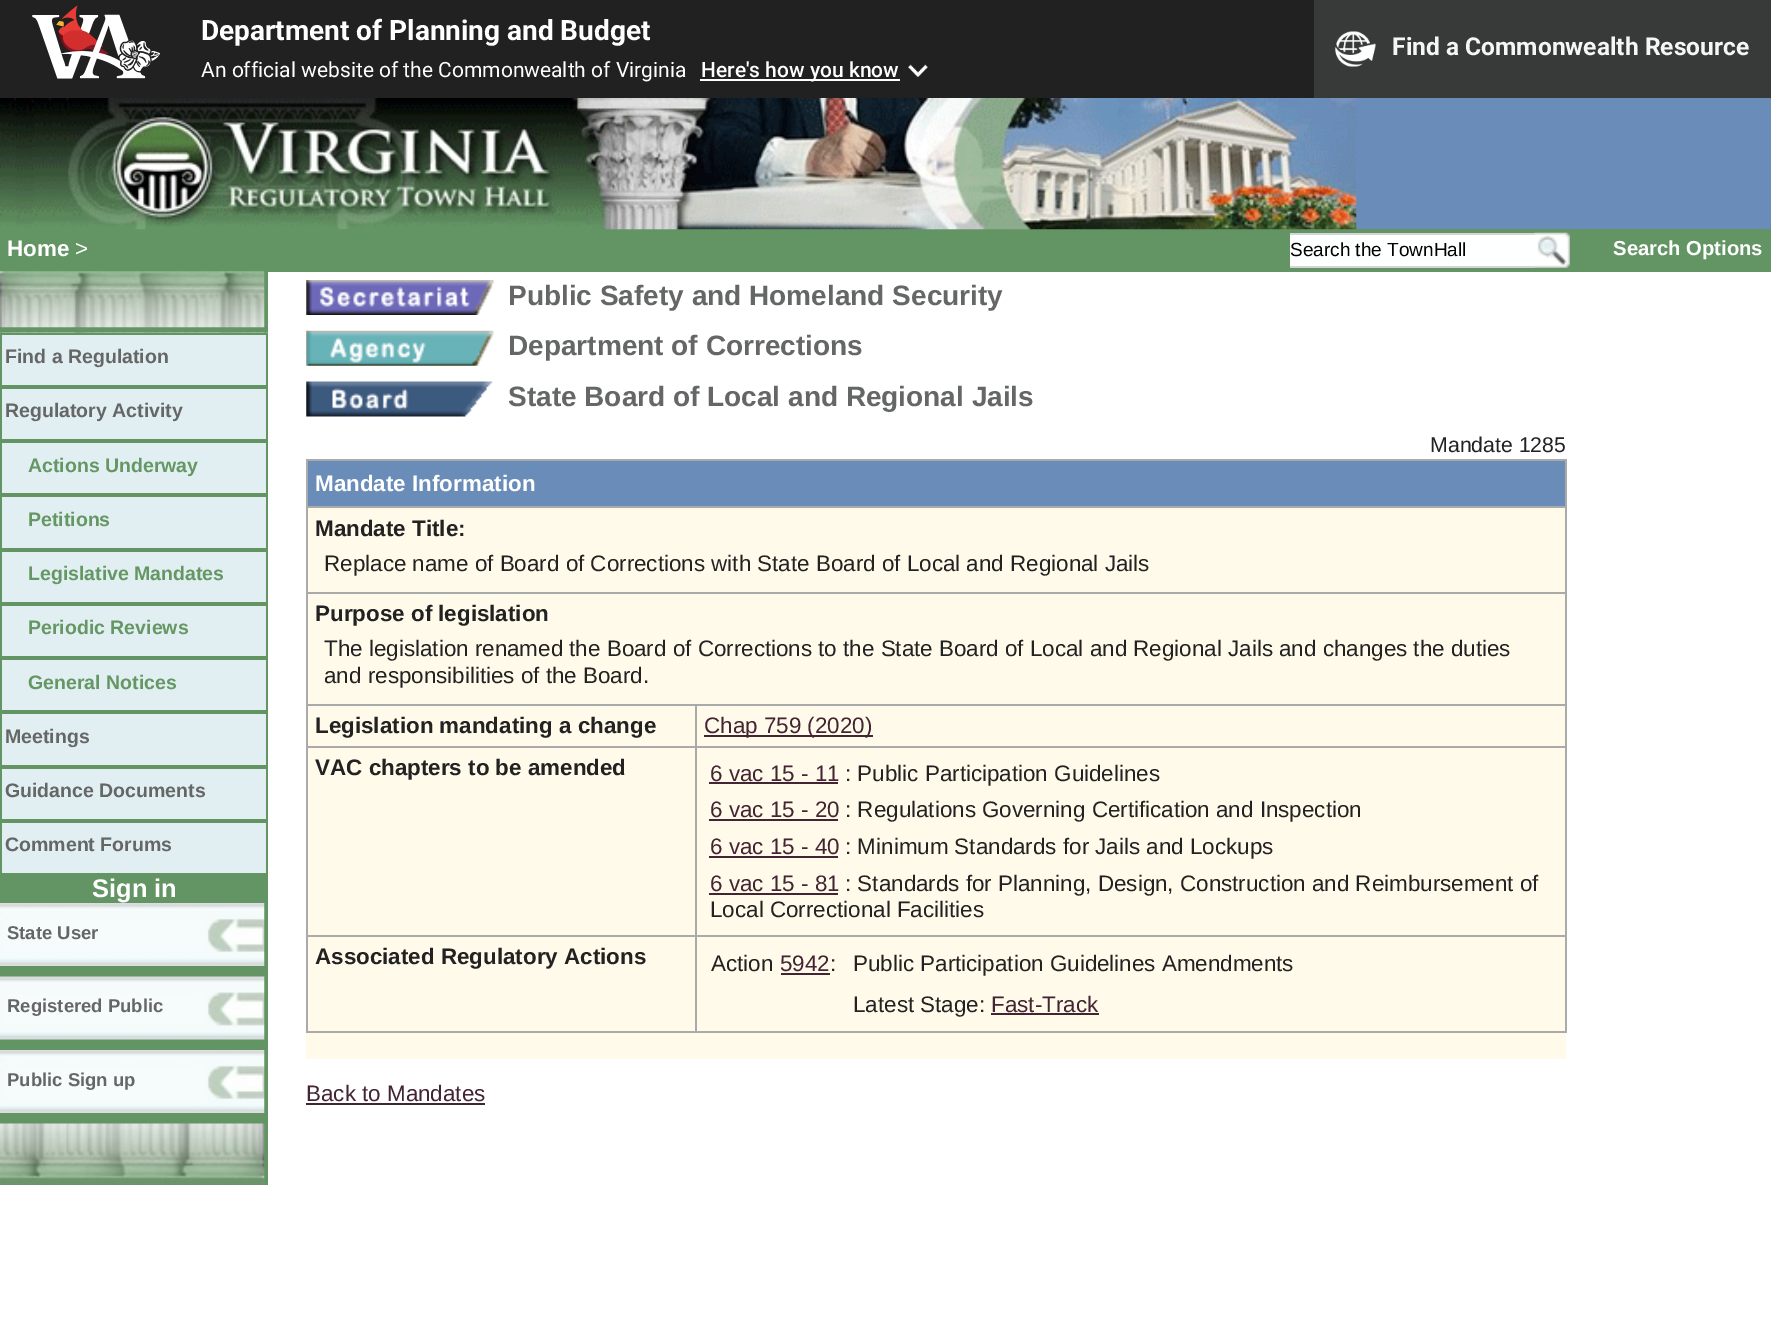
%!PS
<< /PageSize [1771 1328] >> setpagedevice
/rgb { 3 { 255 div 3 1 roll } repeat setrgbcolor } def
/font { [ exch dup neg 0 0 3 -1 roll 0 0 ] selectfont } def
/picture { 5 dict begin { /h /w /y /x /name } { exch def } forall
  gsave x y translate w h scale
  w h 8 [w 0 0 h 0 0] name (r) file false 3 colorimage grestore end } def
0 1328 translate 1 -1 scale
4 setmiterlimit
255 255 255 rgb
0 0 1771 1328 rectfill
33 33 33 rgb
0 0 1314 98 rectfill
(img/1.rgb) 32 5 129 74 picture
255 255 255 rgb
700 79 200 2 rectfill
(img/2.rgb) 908 64 20 13 picture
56 57 57 rgb
1314 0 457 98 rectfill
(img/3.rgb) 1335 31 41 36 picture
105 140 184 rgb
1356 98 415 131 rectfill
99 149 100 rgb
0 229 1771 43 rectfill
(img/4.rgb) 0 98 1357 132 picture
[
  [1290 235 245 31 254 255 255]
  [1290 233 245 2 213 213 213]
  [1290 266 245 2 213 213 213]
] { aload pop rgb rectfill } forall
(img/5.rgb) 1534 232 36 36 picture
99 149 100 rgb
0 272 268 913 rectfill
(img/6.rgb) 0 271 265 57 picture
(img/7.rgb) 0 332 268 1 picture
[
  [2 335 264 50 225 239 242]
  [2 389 264 50 225 239 242]
  [2 443 264 50 225 239 242]
  [2 497 264 51 225 239 242]
  [2 552 264 50 225 239 242]
  [2 606 264 50 225 239 242]
  [2 660 264 50 225 239 242]
  [2 714 264 51 225 239 242]
  [2 769 264 50 225 239 242]
  [2 823 264 50 225 239 242]
] { aload pop rgb rectfill } forall
(img/8.rgb) 0 903 265 63 picture
(img/9.rgb) 0 976 265 64 picture
(img/10.rgb) 0 1050 265 63 picture
(img/11.rgb) 0 1123 265 62 picture
(img/12.rgb) 306 280 188 35 picture
(img/13.rgb) 306 330 188 36 picture
(img/14.rgb) 306 381 187 36 picture
[
  [306 508 1260 551 255 250 234]
  [308 461 1257 45 105 140 184]
  [306 459 1260 2 170 170 170]
  [306 506 1260 2 170 170 170]
  [306 592 1260 2 170 170 170]
  [695 704 871 2 170 170 170]
  [695 746 871 2 170 170 170]
  [695 935 871 2 170 170 170]
  [306 1031 1260 2 170 170 170]
  [1565 935 2 98 170 170 170]
  [1565 746 2 190 170 170 170]
  [1565 704 2 43 170 170 170]
  [1565 592 2 113 170 170 170]
  [1565 506 2 87 170 170 170]
  [1565 459 2 49 170 170 170]
  [695 935 2 98 170 170 170]
  [306 935 391 2 170 170 170]
  [695 746 2 190 170 170 170]
  [306 746 391 2 170 170 170]
  [695 704 2 43 170 170 170]
  [306 704 391 2 170 170 170]
  [306 935 2 98 170 170 170]
  [306 746 2 190 170 170 170]
  [306 704 2 43 170 170 170]
  [306 592 2 113 170 170 170]
  [306 506 2 87 170 170 170]
  [306 459 2 49 170 170 170]
  [704 735 169 2 67 36 50]
  [709 782 129 2 67 36 50]
  [709 819 129 2 67 36 50]
  [709 856 129 2 67 36 50]
  [709 893 129 2 67 36 50]
  [781 973 49 2 67 36 50]
  [991 1013 108 2 67 36 50]
  [306 1103 179 2 67 36 50]
] { aload pop rgb rectfill } forall
/Roboto-Bold 28 font
255 255 255 rgb
201 40 moveto (Department of Planning and Budget) show
/Roboto-Regular 21 font
201 77 moveto (An official website of the Commonwealth of Virginia) show
/Roboto-Medium 21 font
701 77 moveto (Here's how you know) show
/Roboto-Bold 24.6 font
246 246 246 rgb
1392 55 moveto (Find a Commonwealth Resource) show
/LiberationSans-Bold 22.4 font
255 255 255 rgb
7 256 moveto (Home) show
/LiberationSans-Regular 22.4 font
75 256 moveto (>) show
/LiberationSans-Regular 19 font
0 0 0 rgb
1290 256 moveto (Search the TownHall) show
/LiberationSans-Bold 20.25 font
255 255 255 rgb
1613 255 moveto (Search Options) show
/LiberationSans-Bold 19.5 font
101 103 102 rgb
5 363 moveto (Find a Regulation) show
5 417 moveto (Regulatory Activity) show
101 151 100 rgb
[
  [(Actions Underway) 28 472]
  [(Petitions) 28 526]
  [(Legislative Mandates) 28 580]
  [(Periodic Reviews) 28 634]
  [(General Notices) 28 689]
] { aload pop moveto show } forall
101 103 102 rgb
[
  [(Meetings) 5 743]
  [(Guidance Documents) 5 797]
  [(Comment Forums) 5 851]
] { aload pop moveto show } forall
/LiberationSans-Bold 25.5 font
255 255 255 rgb
92 897 moveto (Sign in) show
/LiberationSans-Bold 18.5 font
101 103 102 rgb
[
  [(State User) 7 939]
  [(Registered Public) 7 1012]
  [(Public Sign up) 7 1086]
] { aload pop moveto show } forall
/LiberationSans-Bold 28 font
[
  [(Public Safety and Homeland Security) 508 305]
  [(Department of Corrections) 508 355]
  [(State Board of Local and Regional Jails) 508 406]
] { aload pop moveto show } forall
/LiberationSans-Regular 21.25 font
34 34 34 rgb
1430 452 moveto (Mandate 1285) show
/LiberationSans-Bold 22.4 font
255 255 255 rgb
315 491 moveto (Mandate Information) show
34 34 34 rgb
315 536 moveto (Mandate Title:) show
/LiberationSans-Regular 22.4 font
324 571 moveto (Replace name of Board of Corrections with State Board of Local and Regional Jails) show
/LiberationSans-Bold 22.4 font
315 621 moveto (Purpose of legislation) show
/LiberationSans-Regular 22.4 font
324 656 moveto (The legislation renamed the Board of Corrections to the State Board of Local and Regional Jails and changes the duties) show
324 683 moveto (and responsibilities of the Board.) show
/LiberationSans-Bold 22.4 font
315 733 moveto (Legislation mandating a change) show
/LiberationSans-Regular 22.4 font
67 36 50 rgb
704 733 moveto (Chap 759 \(2020\)) show
/LiberationSans-Bold 22.4 font
34 34 34 rgb
315 775 moveto (VAC chapters to be amended) show
/LiberationSans-Regular 22.4 font
67 36 50 rgb
710 781 moveto (6 vac 15 - 11) show
34 34 34 rgb
845 781 moveto (: Public Participation Guidelines) show
67 36 50 rgb
710 817 moveto (6 vac 15 - 20) show
34 34 34 rgb
845 817 moveto (: Regulations Governing Certification and Inspection) show
67 36 50 rgb
710 854 moveto (6 vac 15 - 40) show
34 34 34 rgb
845 854 moveto (: Minimum Standards for Jails and Lockups) show
67 36 50 rgb
710 891 moveto (6 vac 15 - 81) show
34 34 34 rgb
845 891 moveto (: Standards for Planning, Design, Construction and Reimbursement of) show
710 917 moveto (Local Correctional Facilities) show
/LiberationSans-Bold 22.4 font
315 964 moveto (Associated Regulatory Actions) show
/LiberationSans-Regular 22.4 font
711 971 moveto (Action) show
67 36 50 rgb
780 971 moveto (5942) show
34 34 34 rgb
[
  [(:) 830 971]
  [(Public Participation Guidelines Amendments) 853 971]
  [(Latest Stage:) 853 1012]
] { aload pop moveto show } forall
67 36 50 rgb
991 1012 moveto (Fast-Track) show
306 1101 moveto (Back to Mandates) show
showpage
